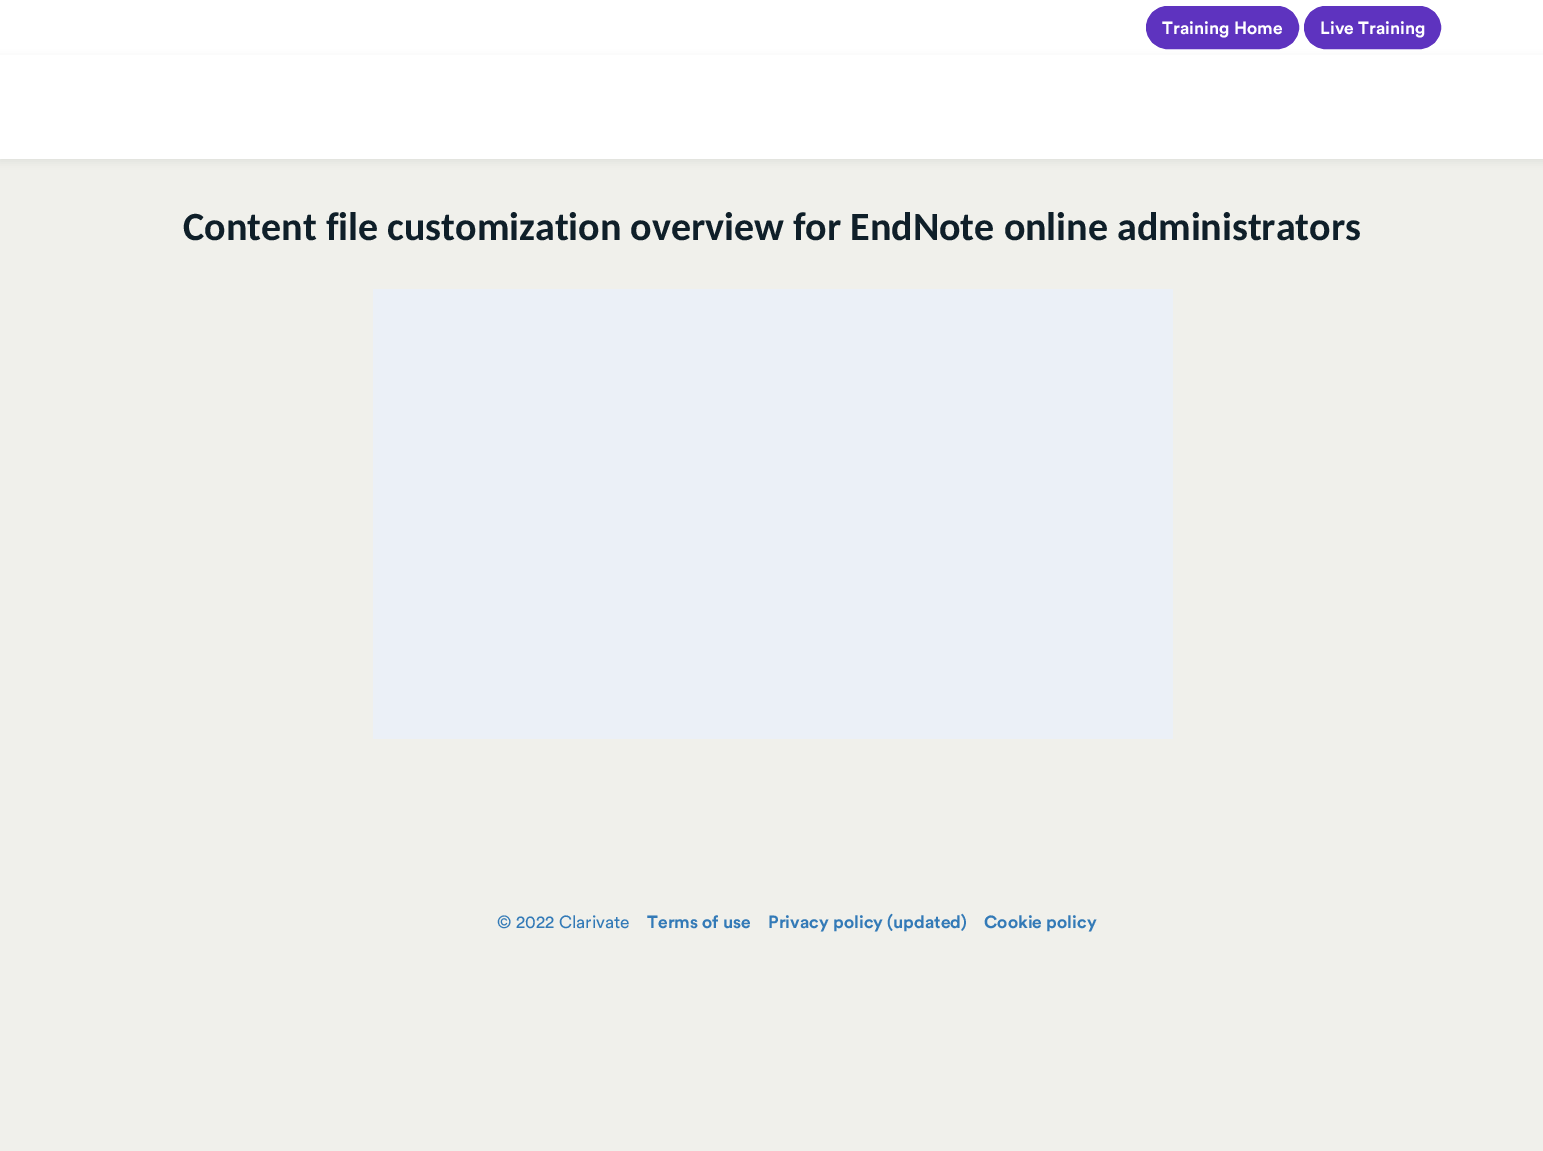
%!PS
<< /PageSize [1543 1151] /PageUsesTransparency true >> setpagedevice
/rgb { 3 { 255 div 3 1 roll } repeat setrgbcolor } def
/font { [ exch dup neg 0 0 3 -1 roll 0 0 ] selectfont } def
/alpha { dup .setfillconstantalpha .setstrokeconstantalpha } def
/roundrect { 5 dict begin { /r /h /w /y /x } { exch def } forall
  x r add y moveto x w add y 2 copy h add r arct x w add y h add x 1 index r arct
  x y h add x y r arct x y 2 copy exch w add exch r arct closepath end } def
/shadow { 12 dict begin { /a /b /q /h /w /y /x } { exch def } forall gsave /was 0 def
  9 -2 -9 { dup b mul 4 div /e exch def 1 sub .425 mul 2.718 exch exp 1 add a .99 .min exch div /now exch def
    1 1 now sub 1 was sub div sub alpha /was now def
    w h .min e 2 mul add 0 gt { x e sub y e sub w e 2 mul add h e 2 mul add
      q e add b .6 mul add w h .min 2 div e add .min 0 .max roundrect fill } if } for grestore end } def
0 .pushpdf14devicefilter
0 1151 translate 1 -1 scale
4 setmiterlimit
240 240 235 rgb
0 0 1543 1151 rectfill
255 255 255 rgb
0 0 1543 55 rectfill
15 31 41 rgb
0 58 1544 103 0 4 0.08 shadow
94 51 191 rgb
1146.5 6.5 152 42 21 roundrect gsave fill grestore
stroke
1304.5 6.5 136 42 21 roundrect gsave fill grestore
stroke
255 255 255 rgb
0 55 1543 104 rectfill
235 240 247 rgb
373 289 800 450 rectfill
/Circular-Bold 17.5 font
255 255 255 rgb
1162 34 moveto (Training Home) show
1320 34 moveto (Live Training) show
/Carlito-Bold 40 font
15 31 41 rgb
183 240 moveto (Content file customization overview for EndNote online administrators) show
/Circular-Regular 17.5 font
51 122 183 rgb
497 928 moveto (© 2022 Clarivate) show
/Circular-Bold 17.5 font
[
  [(Terms of use) 647 928]
  [(Privacy policy \(updated\)) 768 928]
  [(Cookie policy) 984 928]
] { aload pop moveto show } forall
.poppdf14devicefilter showpage
